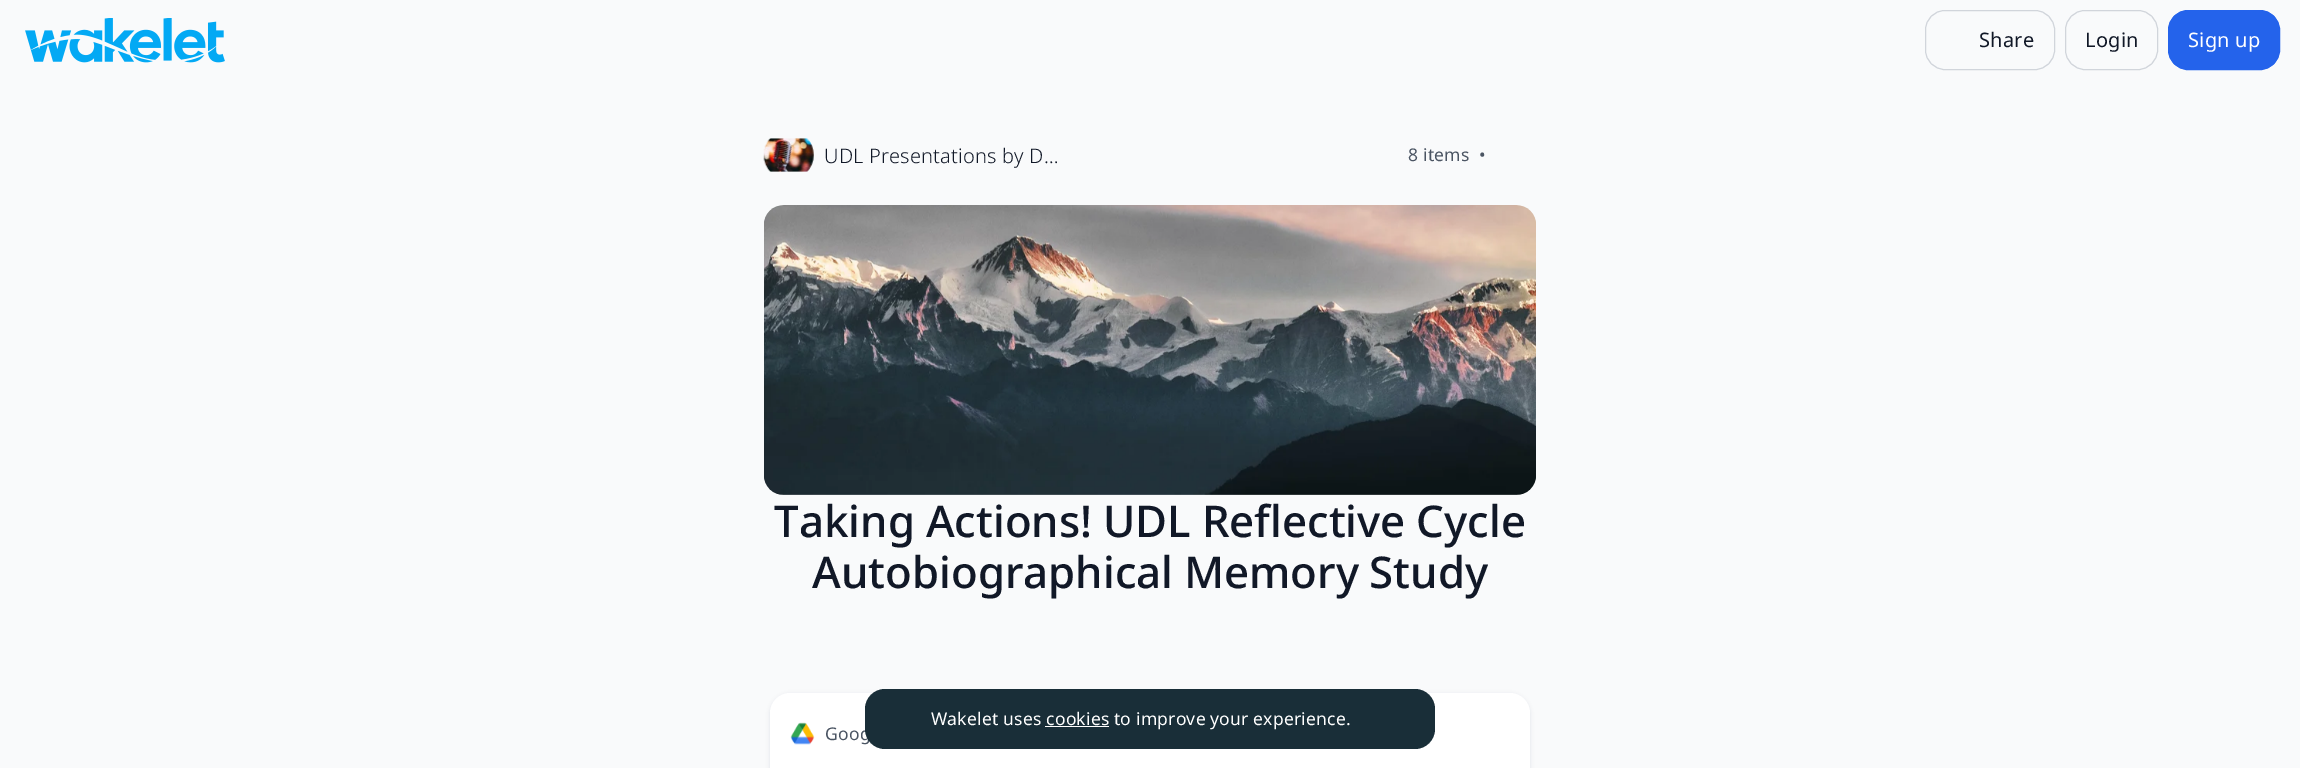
%!PS
<< /PageSize [2300 768] /PageUsesTransparency true >> setpagedevice
/rgb { 3 { 255 div 3 1 roll } repeat setrgbcolor } def
/font { [ exch dup neg 0 0 3 -1 roll 0 0 ] selectfont } def
/alpha { dup .setfillconstantalpha .setstrokeconstantalpha } def
/roundrect { 5 dict begin { /r /h /w /y /x } { exch def } forall
  x r add y moveto x w add y 2 copy h add r arct x w add y h add x 1 index r arct
  x y h add x y r arct x y 2 copy exch w add exch r arct closepath end } def
/shadow { 12 dict begin { /a /b /q /h /w /y /x } { exch def } forall gsave /was 0 def
  9 -2 -9 { dup b mul 4 div /e exch def 1 sub .425 mul 2.718 exch exp 1 add a .99 .min exch div /now exch def
    1 1 now sub 1 was sub div sub alpha /was now def
    w h .min e 2 mul add 0 gt { x e sub y e sub w e 2 mul add h e 2 mul add
      q e add b .6 mul add w h .min 2 div e add .min 0 .max roundrect fill } if } for grestore end } def
/picture { 5 dict begin { /h /w /y /x /name } { exch def } forall
  gsave x y translate w h scale
  w h 8 [w 0 0 h 0 0] name (r) file false 3 colorimage grestore end } def
0 .pushpdf14devicefilter
0 768 translate 1 -1 scale
4 setmiterlimit
249 250 251 rgb
0 0 2300 768 rectfill
(img/1.rgb) 25 18 200 45 picture
209 213 219 rgb
1925.5 10.5 129 59 19.5 roundrect stroke
2065.5 10.5 92 59 19.5 roundrect stroke
36 99 235 rgb
2168.5 10.5 111 59 19.5 roundrect gsave fill grestore
stroke
(img/2.rgb) 763 138 51 34 picture
(img/3.rgb) 764 205 772 290 picture
0 24 61 rgb
770 694 760 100 20 2 0.1 shadow
255 255 255 rgb
790 693 moveto 1510 693 lineto 1521 693 1530 702 1530 713 curveto 1530 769 lineto 770 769 lineto 770 713 lineto 770 702 779 693 790 693 curveto closepath fill
(img/4.rgb) 790 722 25 23 picture
/NotoSans-Regular 20 font
17 24 39 rgb
1979 47 moveto 0.25 0 (Share) ashow
2085 47 moveto 0.25 0 (Login) ashow
255 255 255 rgb
2188 47 moveto 0.25 0 (Sign up) ashow
/NotoSans-Light 20 font
17 24 39 rgb
824 163 moveto 0.2 0 (UDL Presentations by D…) ashow
/NotoSans-Regular 17.5 font
75 85 99 rgb
1408 161 moveto 0.2 0 (8 items) ashow
1479 161 moveto 0.2 0 (•) ashow
/NotoSans-Medium 43.75 font
17 24 39 rgb
774 537 moveto -0.5 0 32 (Taking Actions! UDL Reflective Cycle) widthshow
812 588 moveto -1 0 32 (Autobiographical Memory Study) widthshow
/NotoSans-Regular 17.5 font
75 85 99 rgb
825 740 moveto 0.2 0 (Goog) ashow
25 46 56 rgb
865 689 570 60 20 roundrect fill
255 255 255 rgb
931 725 moveto 0.2 0 (Wakelet uses cookies to improve your experience.) ashow
1045 726 64 1 rectfill
.poppdf14devicefilter showpage
